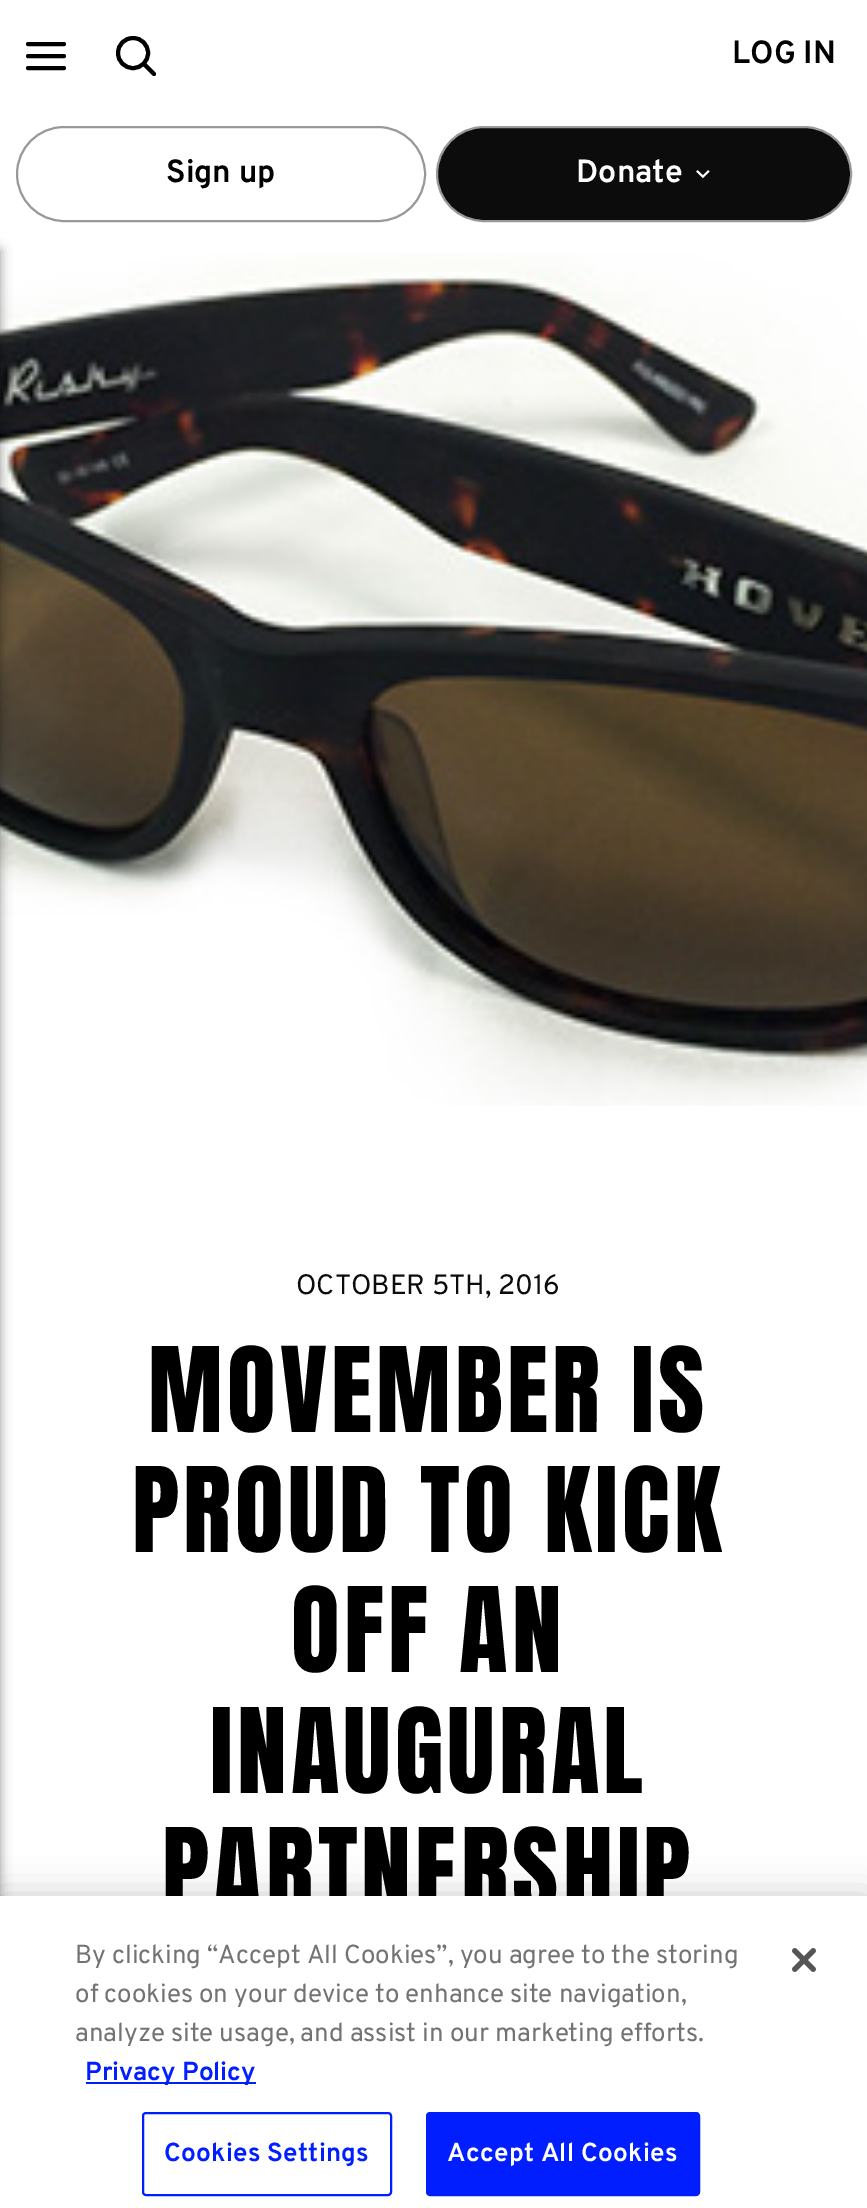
%!PS
<< /PageSize [867 2208] /PageUsesTransparency true >> setpagedevice
/rgb { 3 { 255 div 3 1 roll } repeat setrgbcolor } def
/font { [ exch dup neg 0 0 3 -1 roll 0 0 ] selectfont } def
/alpha { dup .setfillconstantalpha .setstrokeconstantalpha } def
/roundrect { 5 dict begin { /r /h /w /y /x } { exch def } forall
  x r add y moveto x w add y 2 copy h add r arct x w add y h add x 1 index r arct
  x y h add x y r arct x y 2 copy exch w add exch r arct closepath end } def
/shadow { 12 dict begin { /a /b /q /h /w /y /x } { exch def } forall gsave /was 0 def
  9 -2 -9 { dup b mul 4 div /e exch def 1 sub .425 mul 2.718 exch exp 1 add a .99 .min exch div /now exch def
    1 1 now sub 1 was sub div sub alpha /was now def
    w h .min e 2 mul add 0 gt { x e sub y e sub w e 2 mul add h e 2 mul add
      q e add b .6 mul add w h .min 2 div e add .min 0 .max roundrect fill } if } for grestore end } def
/picture { 5 dict begin { /h /w /y /x /name } { exch def } forall
  gsave x y translate w h scale
  w h 8 [w 0 0 h 0 0] name (r) file false 3 colorimage grestore end } def
0 .pushpdf14devicefilter
0 2208 translate 1 -1 scale
4 setmiterlimit
255 255 255 rgb
0 0 867 2208 rectfill
0 0 0 rgb
4 setlinewidth
1 setlinecap
1 setlinejoin
28 56 moveto 64 56 lineto 28 44 moveto 64 44 lineto 28 68 moveto 64 68 lineto stroke
133 68 moveto 141.5 68 148 61.5 148 53 curveto 148 44.5 141.5 38 133 38 curveto 124.5 38 118 44.5 118 53 curveto 118 61.5 124.5 68 133 68 curveto closepath 154 74 moveto 143.5 63.5 lineto stroke
153 153 153 rgb
2 setlinewidth
0 setlinecap
0 setlinejoin
17 127 408 94 47 roundrect stroke
12 12 12 rgb
437 127 414 94 47 roundrect gsave fill grestore
153 153 153 rgb
stroke
(img/1.rgb) 696 170 14 9 picture
(img/2.rgb) 0 253 867 853 picture
0 0 0 rgb
-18 250 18 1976 0 6 0.4 shadow
0 1896 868 312 0 18 0.2 shadow
/Overpass-Bold 32 font
732 63 moveto (LOG IN) show
166 182 moveto (Sign up) show
255 255 255 rgb
576 182 moveto (Donate) show
/Overpass-Regular 28 font
12 12 12 rgb
296 1294 moveto (OCTOBER 5TH, 2016) show
/Anton-Regular 100.25 font
0 0 0 rgb
148 1432 moveto 4 0 (MOVEMBER IS) ashow
132 1552 moveto 4 0 (PROUD TO KICK) ashow
291 1672 moveto 4 0 (OFF AN) ashow
210 1793 moveto 4 0 (INAUGURAL) ashow
162 1913 moveto 4 0 (PARTNERSHIP) ashow
255 255 255 rgb
0 1896 867 312 rectfill
/Overpass-Regular 26 font
115 115 115 rgb
[
  [(By clicking “Accept All Cookies”, you agree to the storing) 75 1963]
  [(of cookies on your device to enhance site navigation,) 75 2002]
  [(analyze site usage, and assist in our marketing efforts.) 75 2041]
] { aload pop moveto show } forall
0 30 255 rgb
86 2082 170 2 rectfill
/Overpass-Bold 26 font
85 2080 moveto (Privacy Policy) show
143 2113 248 82 3 roundrect stroke
164 2161 moveto 0.25 0 (Cookies Settings) ashow
427 2113 272 82 3 roundrect gsave fill grestore
stroke
255 255 255 rgb
447 2161 moveto 0.25 0 (Accept All Cookies) ashow
(img/3.rgb) 792 1948 24 24 picture
.poppdf14devicefilter showpage
